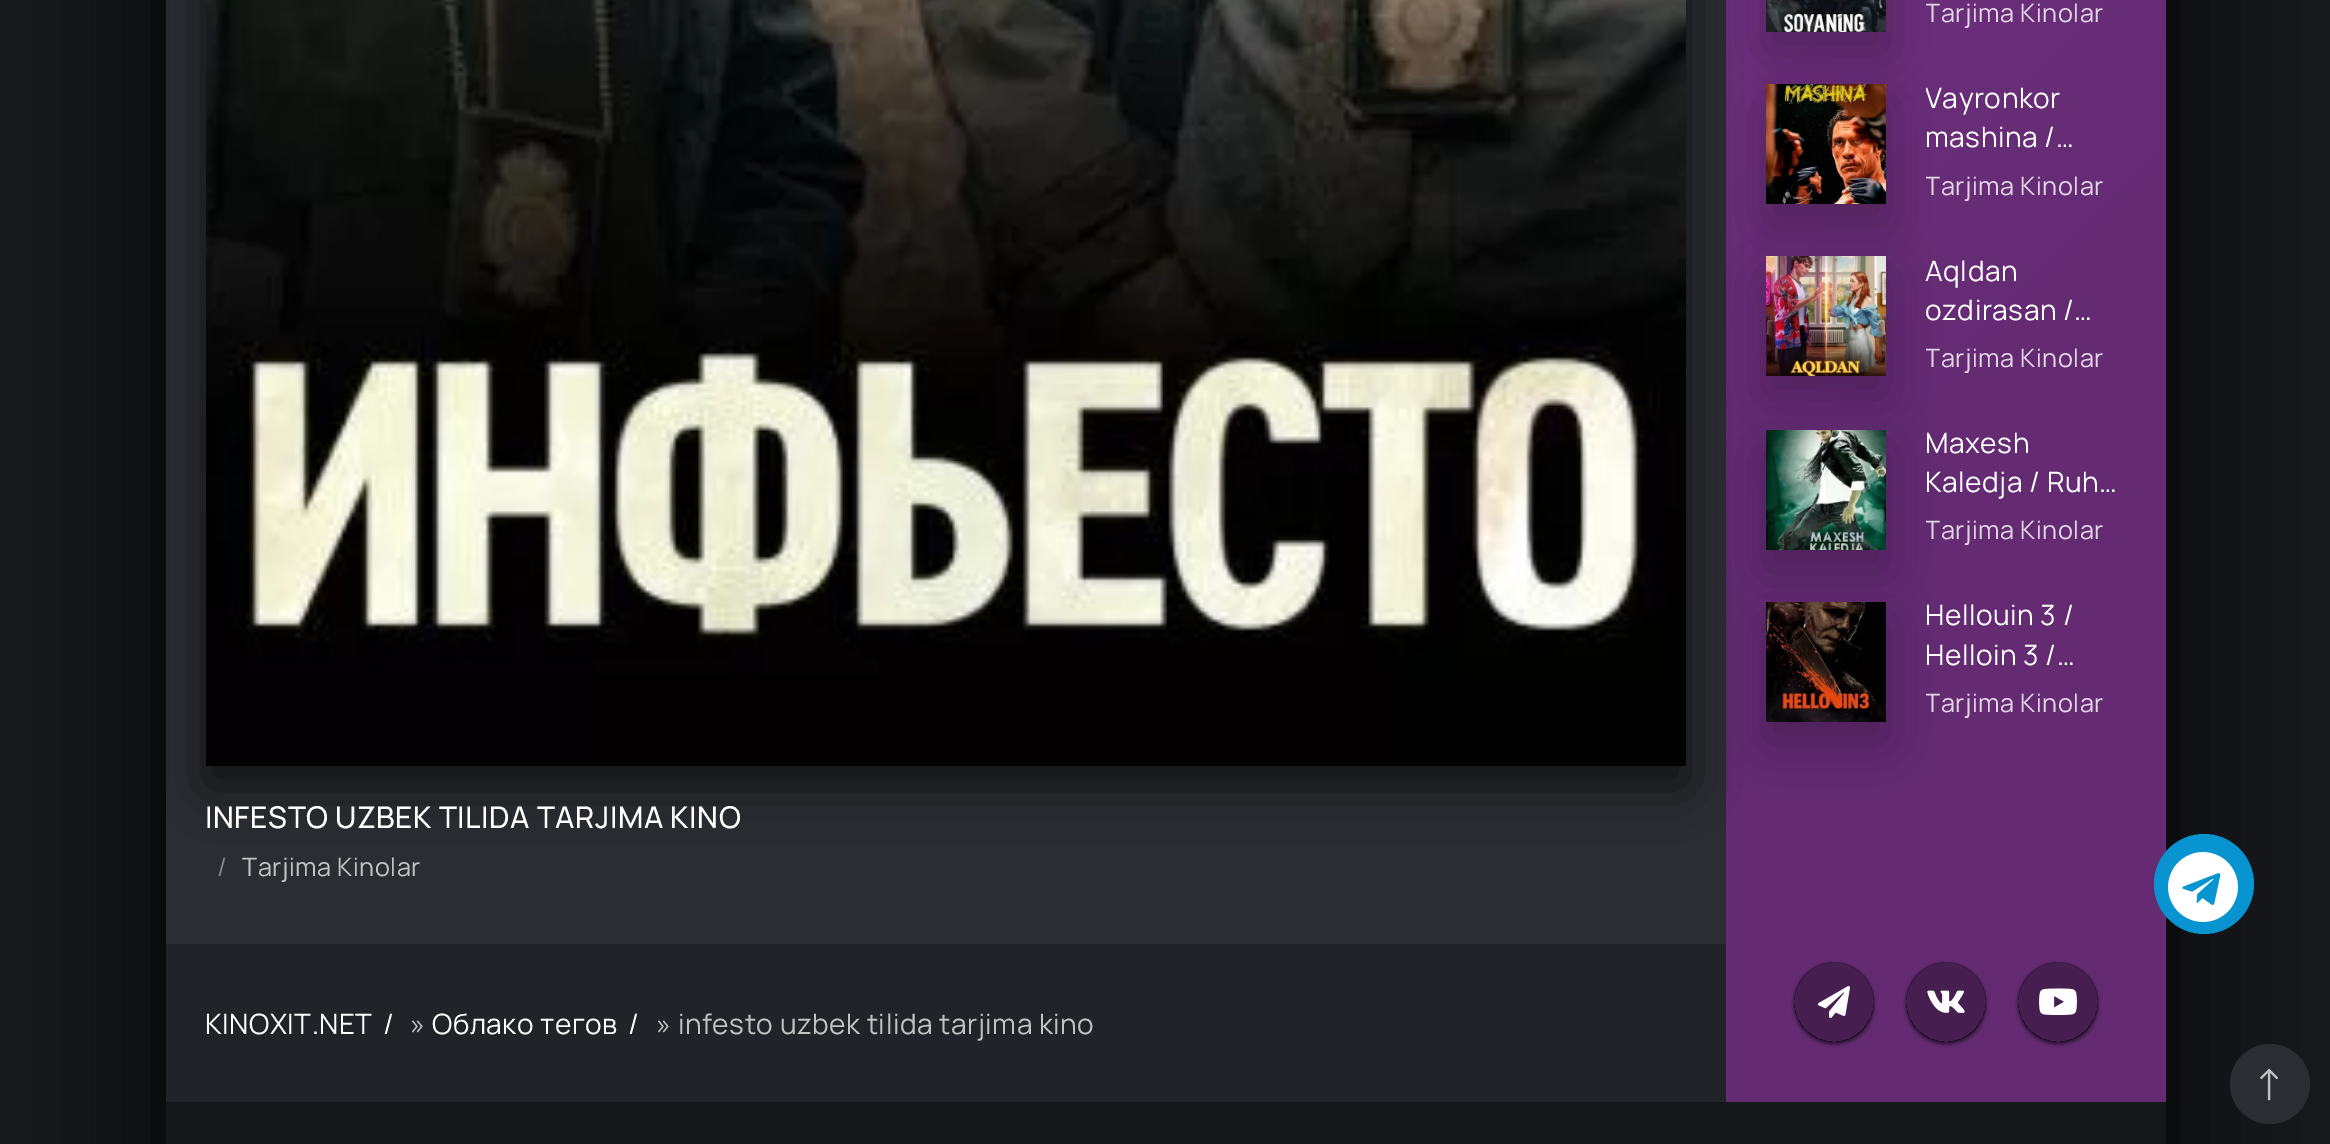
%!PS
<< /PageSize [2330 1144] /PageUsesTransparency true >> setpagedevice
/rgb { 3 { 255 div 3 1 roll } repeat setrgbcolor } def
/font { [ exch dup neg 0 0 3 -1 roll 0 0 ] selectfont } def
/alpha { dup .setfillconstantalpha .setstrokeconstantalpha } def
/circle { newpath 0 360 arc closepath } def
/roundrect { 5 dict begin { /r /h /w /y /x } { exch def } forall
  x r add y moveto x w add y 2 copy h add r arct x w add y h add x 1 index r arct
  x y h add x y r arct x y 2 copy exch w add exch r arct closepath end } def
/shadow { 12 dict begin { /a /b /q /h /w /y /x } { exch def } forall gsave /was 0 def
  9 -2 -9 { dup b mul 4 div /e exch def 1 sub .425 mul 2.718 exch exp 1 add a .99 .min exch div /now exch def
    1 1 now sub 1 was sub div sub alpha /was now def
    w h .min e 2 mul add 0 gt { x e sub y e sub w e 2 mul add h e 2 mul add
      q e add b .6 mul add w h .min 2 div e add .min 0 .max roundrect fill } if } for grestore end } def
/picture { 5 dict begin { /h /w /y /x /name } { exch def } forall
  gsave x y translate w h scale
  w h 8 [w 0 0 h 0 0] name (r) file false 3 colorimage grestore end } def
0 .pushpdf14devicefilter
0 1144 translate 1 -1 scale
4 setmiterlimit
22 24 27 rgb
0 0 2330 1144 rectfill
0 0 0 rgb
166 -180 2000 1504 0 60 1 shadow
44 45 51 rgb
166 0 1560 944 rectfill
gsave 1726 0 moveto 2166 0 lineto 2166 1102 lineto 1726 1102 lineto closepath clip newpath
<< /ShadingType 2 /ColorSpace /DeviceRGB /Coords [1182 -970 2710 558] /Extend [true true] /Function << /FunctionType 3 /Domain [0 1] /Functions [<< /FunctionType 2 /Domain [0 1] /C0 [0.522 0.231 0.592] /C1 [0.392 0.169 0.451] /N 1 >> << /FunctionType 2 /Domain [0 1] /C0 [0.392 0.169 0.451] /C1 [0.392 0.169 0.451] /N 1 >>] /Bounds [0.7] /Encode [0 1 0 1] >> >> shfill grestore
0 0 0 rgb
1766 -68 120 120 0 26 0.25 shadow
(img/1.rgb) 1766 0 120 32 picture
1766 104 120 120 0 26 0.25 shadow
(img/2.rgb) 1766 84 120 120 picture
1766 276 120 120 0 26 0.25 shadow
(img/3.rgb) 1766 256 120 120 picture
1766 450 120 120 0 26 0.25 shadow
(img/4.rgb) 1766 430 120 120 picture
1766 622 120 120 0 26 0.25 shadow
(img/5.rgb) 1766 602 120 120 picture
gsave
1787 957 moveto 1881 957 lineto 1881 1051 lineto 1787 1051 lineto closepath 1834 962 moveto 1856 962 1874 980 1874 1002 curveto 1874 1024 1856 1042 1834 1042 curveto 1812 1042 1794 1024 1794 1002 curveto 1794 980 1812 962 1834 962 curveto closepath eoclip newpath
1794 964 80 80 40 2 0.62 shadow
grestore
0.3 alpha
1834 1002 40 circle fill
1 alpha
(img/6.rgb) 1818 986 32 32 picture
gsave
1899 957 moveto 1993 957 lineto 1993 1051 lineto 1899 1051 lineto closepath 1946 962 moveto 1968 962 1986 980 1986 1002 curveto 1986 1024 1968 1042 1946 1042 curveto 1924 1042 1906 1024 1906 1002 curveto 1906 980 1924 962 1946 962 curveto closepath eoclip newpath
1906 964 80 80 40 2 0.62 shadow
grestore
0.3 alpha
1946 1002 40 circle fill
1 alpha
(img/7.rgb) 1927 990 38 23 picture
gsave
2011 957 moveto 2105 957 lineto 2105 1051 lineto 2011 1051 lineto closepath 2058 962 moveto 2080 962 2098 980 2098 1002 curveto 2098 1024 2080 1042 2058 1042 curveto 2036 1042 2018 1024 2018 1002 curveto 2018 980 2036 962 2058 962 curveto closepath eoclip newpath
2018 964 80 80 40 2 0.62 shadow
grestore
0.3 alpha
2058 1002 40 circle fill
1 alpha
(img/8.rgb) 2039 988 38 28 picture
206 -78 1480 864 0 26 0.65 shadow
(img/9.rgb) 206 0 1480 766 picture
33 35 41 rgb
166 944 1560 158 rectfill
8 148 209 rgb
2204 884 50 circle fill
(img/10.rgb) 2168 852 70 70 picture
22 23 27 rgb
166 1102 2000 42 rectfill
44 45 51 rgb
2270 1084 40 circle fill
(img/11.rgb) 2260 1068 18 33 picture
gsave
1926 0 178 30 rectclip
/Manrope-ExtraLight 25.25 font
225 213 228 rgb
1925 22 moveto 0.55 0 (Tarjima Kinolar) ashow
grestore
gsave
1926 78 200 78 rectclip
/Manrope-ExtraLight 28 font
255 255 255 rgb
1925 108 moveto 0.55 0 (Vayronkor) ashow
grestore
/Manrope-ExtraLight 28 font
255 255 255 rgb
1925 147 moveto 0.55 0 (mashina /…) ashow
gsave
1926 168 178 34 rectclip
/Manrope-ExtraLight 25.25 font
225 213 228 rgb
1925 195 moveto 0.55 0 (Tarjima Kinolar) ashow
grestore
1925 281 moveto 0.55 0 (Aqldan) ashow
1925 320 moveto 0.55 0 (ozdirasan /…) ashow
gsave
1926 342 178 34 rectclip
/Manrope-ExtraLight 25.25 font
225 213 228 rgb
1925 367 moveto 0.55 0 (Tarjima Kinolar) ashow
grestore
1925 453 moveto 0.55 0 (Maxesh) ashow
1925 492 moveto 0.55 0 (Kaledja / Ruh…) ashow
gsave
1926 514 178 34 rectclip
/Manrope-ExtraLight 25.25 font
225 213 228 rgb
1925 539 moveto 0.55 0 (Tarjima Kinolar) ashow
grestore
1925 625 moveto 0.55 0 (Hellouin 3 /) ashow
1925 665 moveto 0.55 0 (Helloin 3 /…) ashow
gsave
1926 686 178 34 rectclip
/Manrope-ExtraLight 25.25 font
225 213 228 rgb
1925 712 moveto 0.55 0 (Tarjima Kinolar) ashow
grestore
/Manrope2-ExtraLight 30 font
205 828 moveto 0.55 0 (INFESTO UZBEK TILIDA TARJIMA KINO) ashow
/Manrope-ExtraLight 25.25 font
135 135 137 rgb
217 876 moveto 0.55 0 (/) ashow
195 195 195 rgb
242 876 moveto 0.55 0 (Tarjima Kinolar) ashow
/Manrope-ExtraLight 28 font
255 255 255 rgb
205 1034 moveto 0.55 0 (KINOXIT.NET) ashow
383 1034 moveto 0.55 0 (/) ashow
195 195 195 rgb
410 1034 moveto 0.55 0 (») ashow
255 255 255 rgb
432 1034 moveto 0.55 0 (Облако тегов) ashow
628 1034 moveto 0.55 0 (/) ashow
195 195 195 rgb
656 1034 moveto 0.55 0 (» infesto uzbek tilida tarjima kino) ashow
.poppdf14devicefilter showpage
